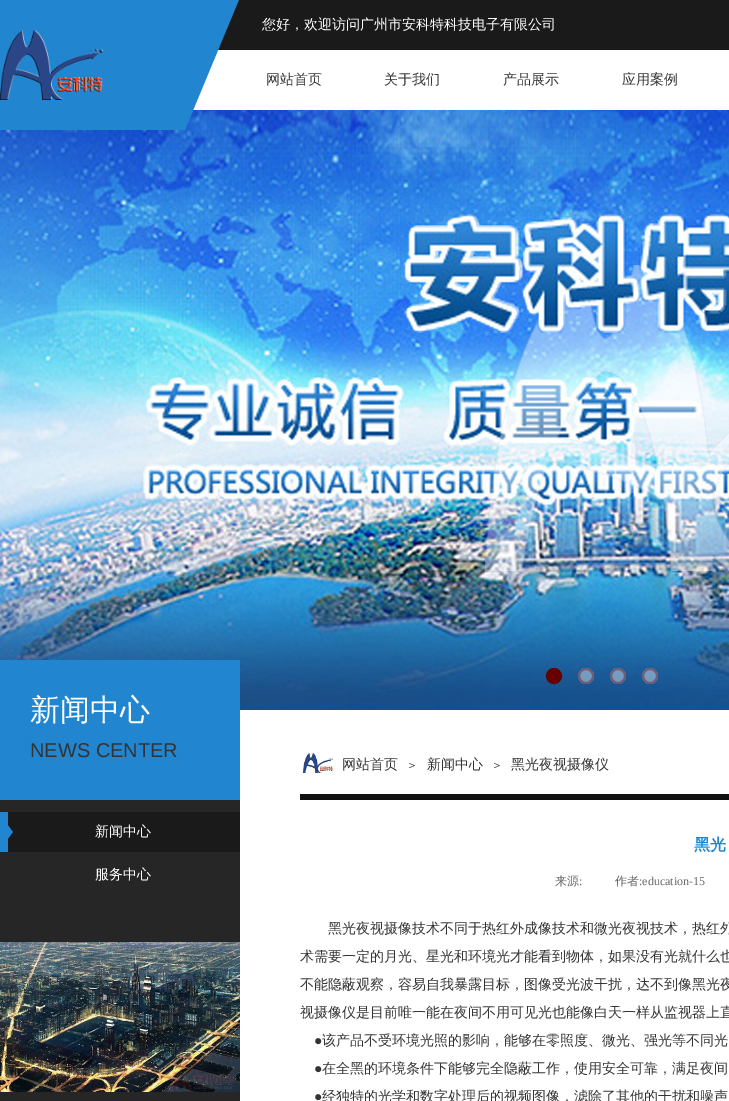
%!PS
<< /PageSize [729 1101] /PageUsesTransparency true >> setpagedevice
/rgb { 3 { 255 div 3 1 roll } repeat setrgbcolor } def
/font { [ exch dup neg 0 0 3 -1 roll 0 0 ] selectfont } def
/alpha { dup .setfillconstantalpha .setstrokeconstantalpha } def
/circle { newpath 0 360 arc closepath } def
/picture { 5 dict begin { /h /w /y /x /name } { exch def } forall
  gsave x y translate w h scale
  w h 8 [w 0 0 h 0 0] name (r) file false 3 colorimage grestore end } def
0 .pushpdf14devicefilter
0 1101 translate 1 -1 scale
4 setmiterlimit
255 255 255 rgb
0 0 729 1101 rectfill
(img/3.rgb) 0 110 729 600 picture
(img/1.rgb) 0 0 729 130 picture
(img/2.rgb) 0 30 103 70 picture
102 0 0 rgb
554 676 7 circle gsave fill grestore
2 setlinewidth
stroke
0.4 alpha
255 255 255 rgb
586 676 8 circle fill
102 0 0 rgb
586 676 7 circle stroke
255 255 255 rgb
618 676 8 circle fill
102 0 0 rgb
618 676 7 circle stroke
255 255 255 rgb
650 676 8 circle fill
102 0 0 rgb
650 676 7 circle stroke
1 alpha
33 134 207 rgb
0 660 240 140 rectfill
(img/4.rgb) 303 753 30 21 picture
17 17 17 rgb
300 794 429 6 rectfill
38 38 38 rgb
0 800 240 301 rectfill
(img/5.rgb) 0 812 240 40 picture
(img/6.rgb) 0 942 240 150 picture
/WenQuanYiZenHei-Medium 14 font
255 255 255 rgb
262 29 moveto (您好，欢迎访问广州市安科特科技电子有限公司) show
51 51 51 rgb
[
  [(网站首页) 266 84]
  [(关于我们) 384 84]
  [(产品展示) 503 84]
  [(应用案例) 622 84]
] { aload pop moveto show } forall
/WenQuanYiZenHei-Medium 30 font
255 255 255 rgb
30 720 moveto (新闻中心) show
/LiberationSans-Regular 20 font
51 51 51 rgb
30 757 moveto (NEWS CENTER) show
/WenQuanYiZenHei-Medium 14 font
342 769 moveto (网站首页) show
/WenQuanYiZenHei-Medium 12 font
406 769 moveto (＞) show
/WenQuanYiZenHei-Medium 14 font
427 769 moveto (新闻中心) show
/WenQuanYiZenHei-Medium 12 font
491 769 moveto (＞) show
/WenQuanYiZenHei-Medium 14 font
511 769 moveto (黑光夜视摄像仪) show
255 255 255 rgb
95 836 moveto (新闻中心) show
95 879 moveto (服务中心) show
/WenQuanYiZenHei-Bold 16 font
33 134 207 rgb
694 850 moveto (黑光) show
/WenQuanYiZenHei-Medium 12 font
102 102 102 rgb
555 885 moveto (来源) show
/LiberationSerif-Regular 12 font
579 885 moveto (:) show
/WenQuanYiZenHei-Medium 12 font
615 885 moveto (作者) show
/LiberationSerif-Regular 12 font
639 885 moveto (:education-15) show
/WenQuanYiZenHei-Medium 14 font
51 51 51 rgb
[
  [(黑光夜视摄像技术不同于热红外成像技术和微光夜视技术，热红外) 328 933]
  [(术需要一定的月光、星光和环境光才能看到物体，如果没有光就什么也) 300 961]
  [(不能隐蔽观察，容易自我暴露目标，图像受光波干扰，达不到像黑光夜) 300 989]
  [(视摄像仪是目前唯一能在夜间不用可见光也能像白天一样从监视器上直) 300 1017]
] { aload pop moveto show } forall
/LiberationSerif-Regular 14 font
314 1045 moveto (●) show
/WenQuanYiZenHei-Medium 14 font
322 1045 moveto (该产品不受环境光照的影响，能够在零照度、微光、强光等不同光) show
/LiberationSerif-Regular 14 font
314 1073 moveto (●) show
/WenQuanYiZenHei-Medium 14 font
322 1073 moveto (在全黑的环境条件下能够完全隐蔽工作，使用安全可靠，满足夜间) show
/LiberationSerif-Regular 14 font
314 1101 moveto (●) show
/WenQuanYiZenHei-Medium 14 font
322 1101 moveto (经独特的光学和数字处理后的视频图像，滤除了其他的干扰和噪声) show
.poppdf14devicefilter showpage
